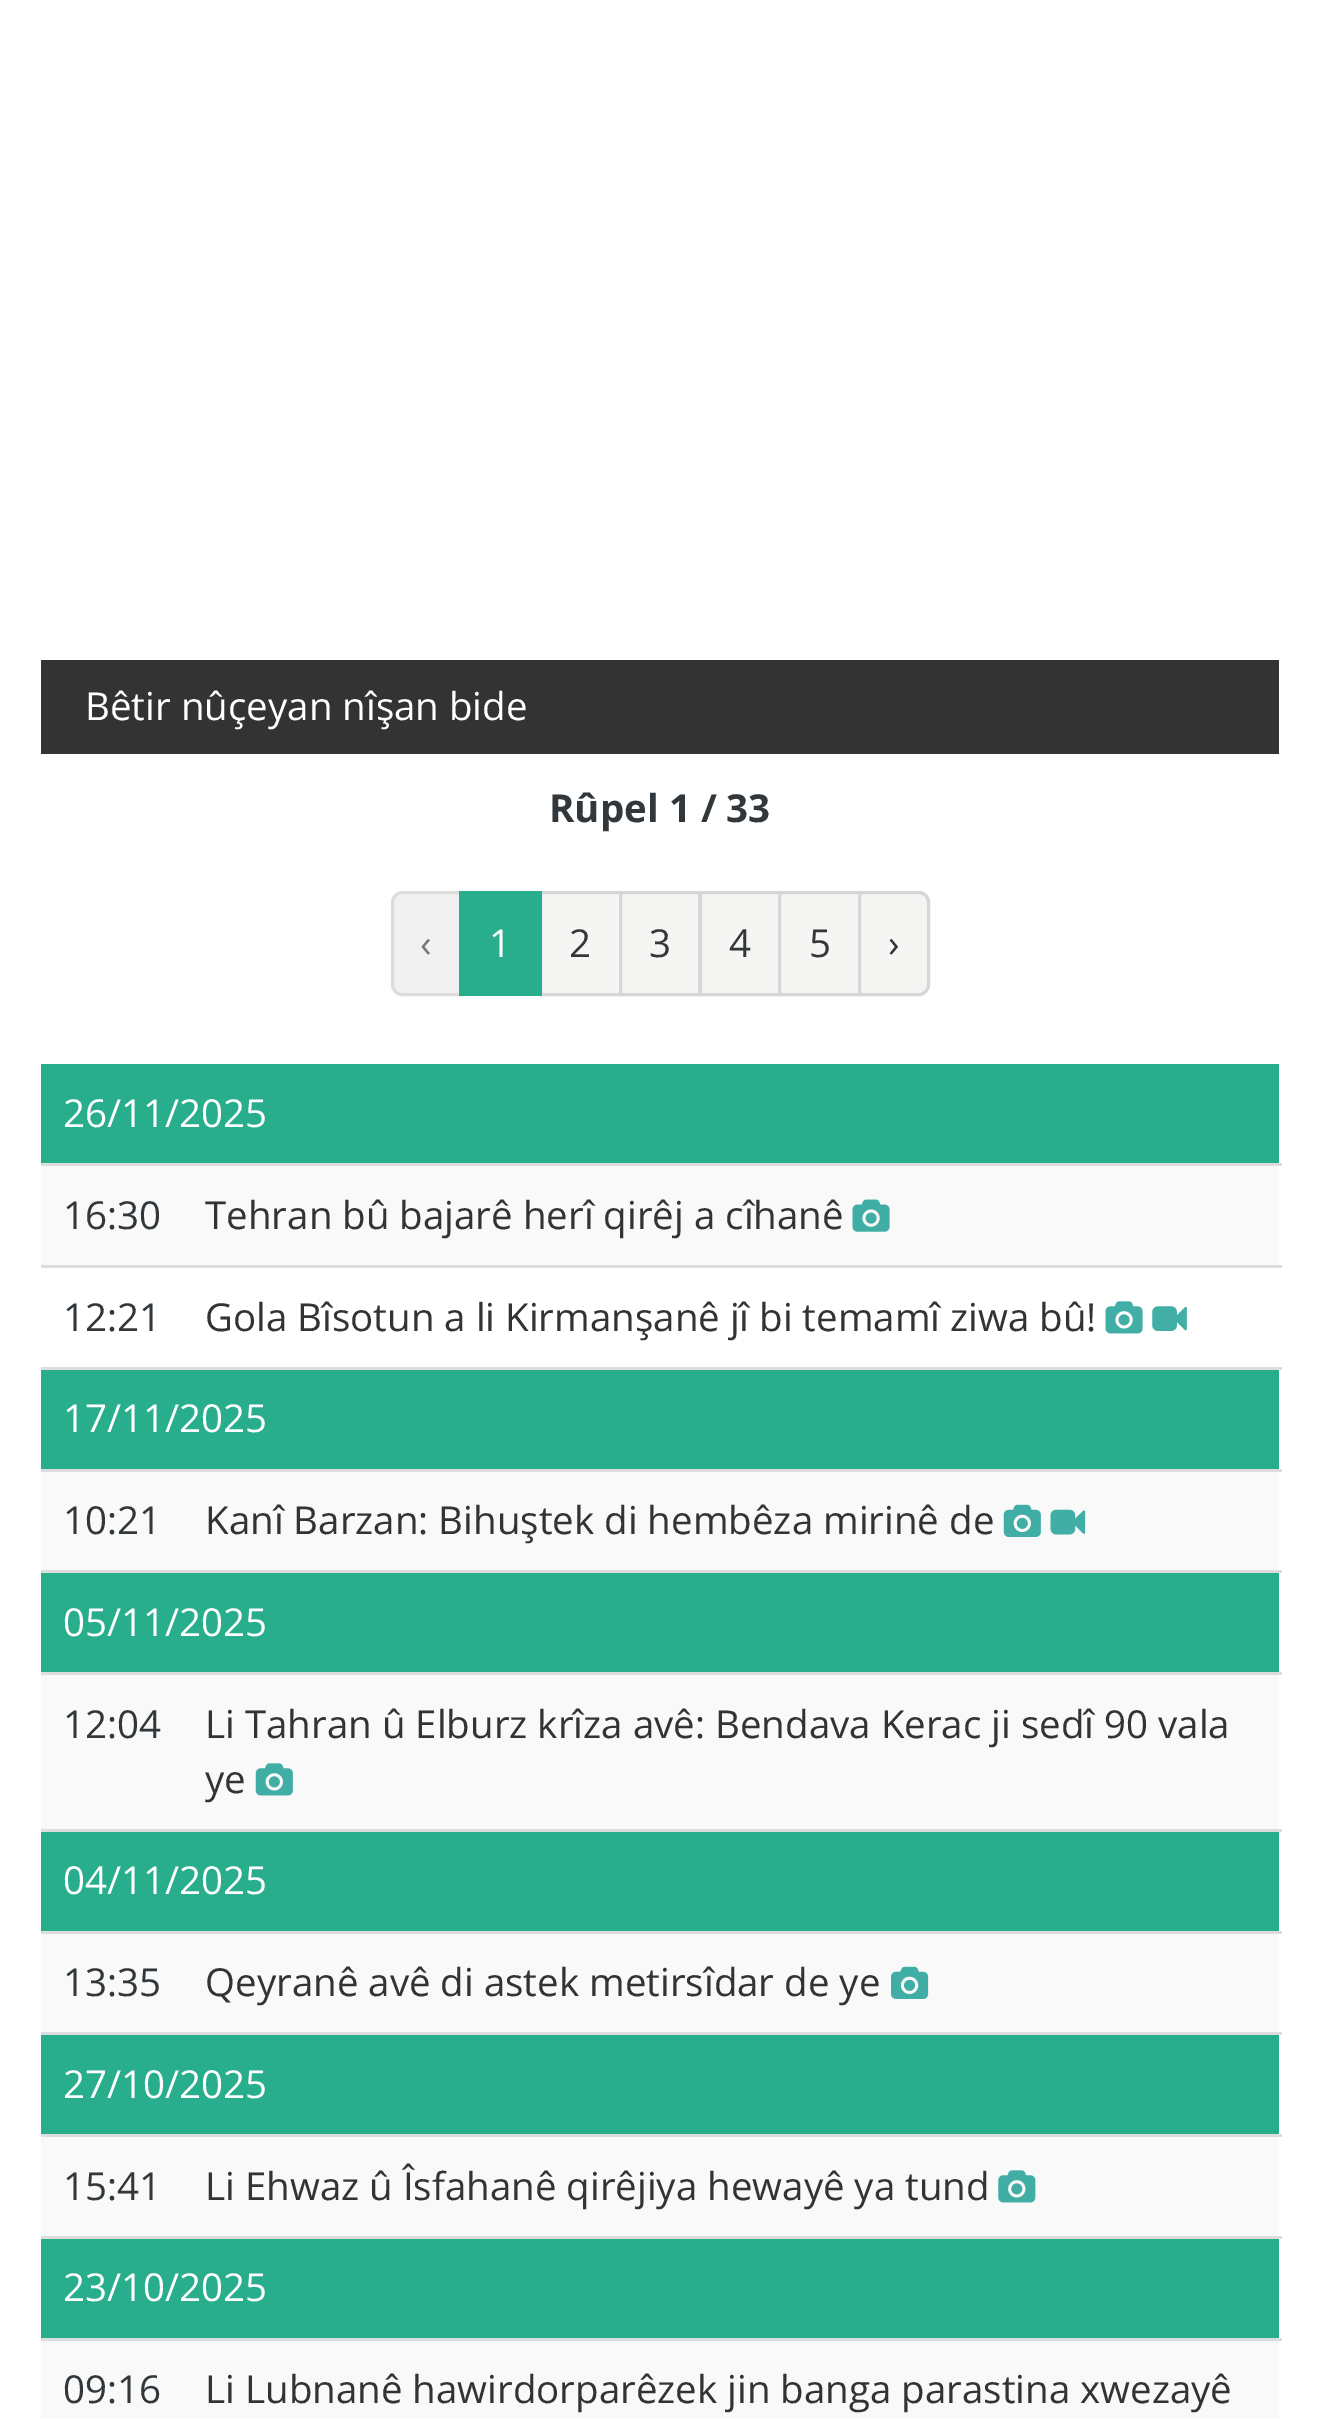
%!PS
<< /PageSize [1320 2419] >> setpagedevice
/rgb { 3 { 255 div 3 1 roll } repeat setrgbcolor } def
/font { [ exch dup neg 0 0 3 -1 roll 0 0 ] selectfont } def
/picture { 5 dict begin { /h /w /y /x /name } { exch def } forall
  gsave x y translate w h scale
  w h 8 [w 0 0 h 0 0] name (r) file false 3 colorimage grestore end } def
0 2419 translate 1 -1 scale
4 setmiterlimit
255 255 255 rgb
0 0 1320 2419 rectfill
51 51 51 rgb
41 660 1238 94 rectfill
241 241 241 rgb
402 892.5 moveto 460.5 892.5 lineto 460.5 994.5 lineto 402 994.5 lineto 397 994.5 392.5 990 392.5 985 curveto 392.5 902 lineto 392.5 897 397 892.5 402 892.5 curveto closepath gsave fill grestore
221 221 221 rgb
3 setlinewidth
stroke
245 245 244 rgb
540.5 892.5 moveto 620.5 892.5 lineto 620.5 994.5 lineto 540.5 994.5 lineto closepath gsave fill grestore
214 214 214 rgb
stroke
40 174 141 rgb
459 891 83 105 rectfill
245 245 244 rgb
620.5 892.5 moveto 699.5 892.5 lineto 699.5 994.5 lineto 620.5 994.5 lineto closepath gsave fill grestore
214 214 214 rgb
stroke
245 245 244 rgb
700.5 892.5 moveto 779.5 892.5 lineto 779.5 994.5 lineto 700.5 994.5 lineto closepath gsave fill grestore
214 214 214 rgb
stroke
245 245 244 rgb
779.5 892.5 moveto 859.5 892.5 lineto 859.5 994.5 lineto 779.5 994.5 lineto closepath gsave fill grestore
214 214 214 rgb
stroke
245 245 244 rgb
859.5 892.5 moveto 919 892.5 lineto 924 892.5 928.5 897 928.5 902 curveto 928.5 985 lineto 928.5 990 924 994.5 919 994.5 curveto 859.5 994.5 lineto closepath gsave fill grestore
214 214 214 rgb
stroke
[
  [41 1064 1238 99 40 174 141]
  [41 1166 1238 99 249 249 249]
  [41 1163 1241 3 221 221 221]
] { aload pop rgb rectfill } forall
(img/1.rgb) 852 1199 38 33 picture
41 1265 1241 3 rectfill
(img/2.rgb) 1105 1301 38 33 picture
(img/3.rgb) 1152 1306 35 25 picture
[
  [41 1370 1238 99 40 174 141]
  [41 1367 1241 3 221 221 221]
  [41 1472 1238 98 249 249 249]
  [41 1469 1241 3 221 221 221]
] { aload pop rgb rectfill } forall
(img/4.rgb) 1003 1504 38 33 picture
(img/5.rgb) 1050 1509 36 26 picture
[
  [41 1573 1238 99 40 174 141]
  [41 1570 1241 3 221 221 221]
  [41 1675 1238 154 249 249 249]
  [41 1672 1241 3 221 221 221]
] { aload pop rgb rectfill } forall
(img/6.rgb) 255 1763 38 33 picture
[
  [41 1832 1238 99 40 174 141]
  [41 1829 1241 3 221 221 221]
  [41 1934 1238 98 249 249 249]
  [41 1931 1241 3 221 221 221]
] { aload pop rgb rectfill } forall
(img/7.rgb) 891 1966 38 33 picture
[
  [41 2035 1238 99 40 174 141]
  [41 2032 1241 3 221 221 221]
  [41 2137 1238 99 249 249 249]
  [41 2134 1241 3 221 221 221]
] { aload pop rgb rectfill } forall
(img/8.rgb) 998 2170 38 33 picture
[
  [41 2239 1238 99 40 174 141]
  [41 2236 1241 3 221 221 221]
  [41 2341 1238 78 249 249 249]
  [41 2338 1241 3 221 221 221]
] { aload pop rgb rectfill } forall
/OpenSans-Regular 38.5 font
255 255 255 rgb
85 720 moveto (Bêtir nûçeyan nîşan bide) show
/OpenSans-Bold 38.5 font
49 55 58 rgb
549 822 moveto (Rûpel 1 / 33) show
/OpenSans-Regular 38.5 font
119 119 119 rgb
420 957 moveto (‹) show
255 255 255 rgb
489 957 moveto (1) show
49 55 58 rgb
[
  [(2) 569 957]
  [(3) 649 957]
  [(4) 729 957]
  [(5) 809 957]
  [(›) 888 957]
] { aload pop moveto show } forall
255 255 255 rgb
63 1127 moveto (26/11/2025) show
49 55 58 rgb
63 1229 moveto (16:30) show
51 51 51 rgb
205 1229 moveto (Tehran bû bajarê herî qirêj a cîhanê) show
49 55 58 rgb
63 1331 moveto (12:21) show
51 51 51 rgb
205 1331 moveto (Gola Bîsotun a li Kirmanşanê jî bi temamî ziwa bû!) show
255 255 255 rgb
63 1432 moveto (17/11/2025) show
49 55 58 rgb
63 1534 moveto (10:21) show
51 51 51 rgb
205 1534 moveto (Kanî Barzan: Bihuştek di hembêza mirinê de) show
255 255 255 rgb
63 1636 moveto (05/11/2025) show
49 55 58 rgb
63 1738 moveto (12:04) show
51 51 51 rgb
205 1738 moveto (Li Tahran û Elburz krîza avê: Bendava Kerac ji sedî 90 vala) show
205 1793 moveto (ye) show
255 255 255 rgb
63 1894 moveto (04/11/2025) show
49 55 58 rgb
63 1996 moveto (13:35) show
51 51 51 rgb
205 1996 moveto (Qeyranê avê di astek metirsîdar de ye) show
255 255 255 rgb
63 2098 moveto (27/10/2025) show
49 55 58 rgb
63 2200 moveto (15:41) show
51 51 51 rgb
205 2200 moveto (Li Ehwaz û Îsfahanê qirêjiya hewayê ya tund) show
255 255 255 rgb
63 2301 moveto (23/10/2025) show
49 55 58 rgb
63 2403 moveto (09:16) show
51 51 51 rgb
205 2403 moveto (Li Lubnanê hawirdorparêzek jin banga parastina xwezayê) show
showpage
